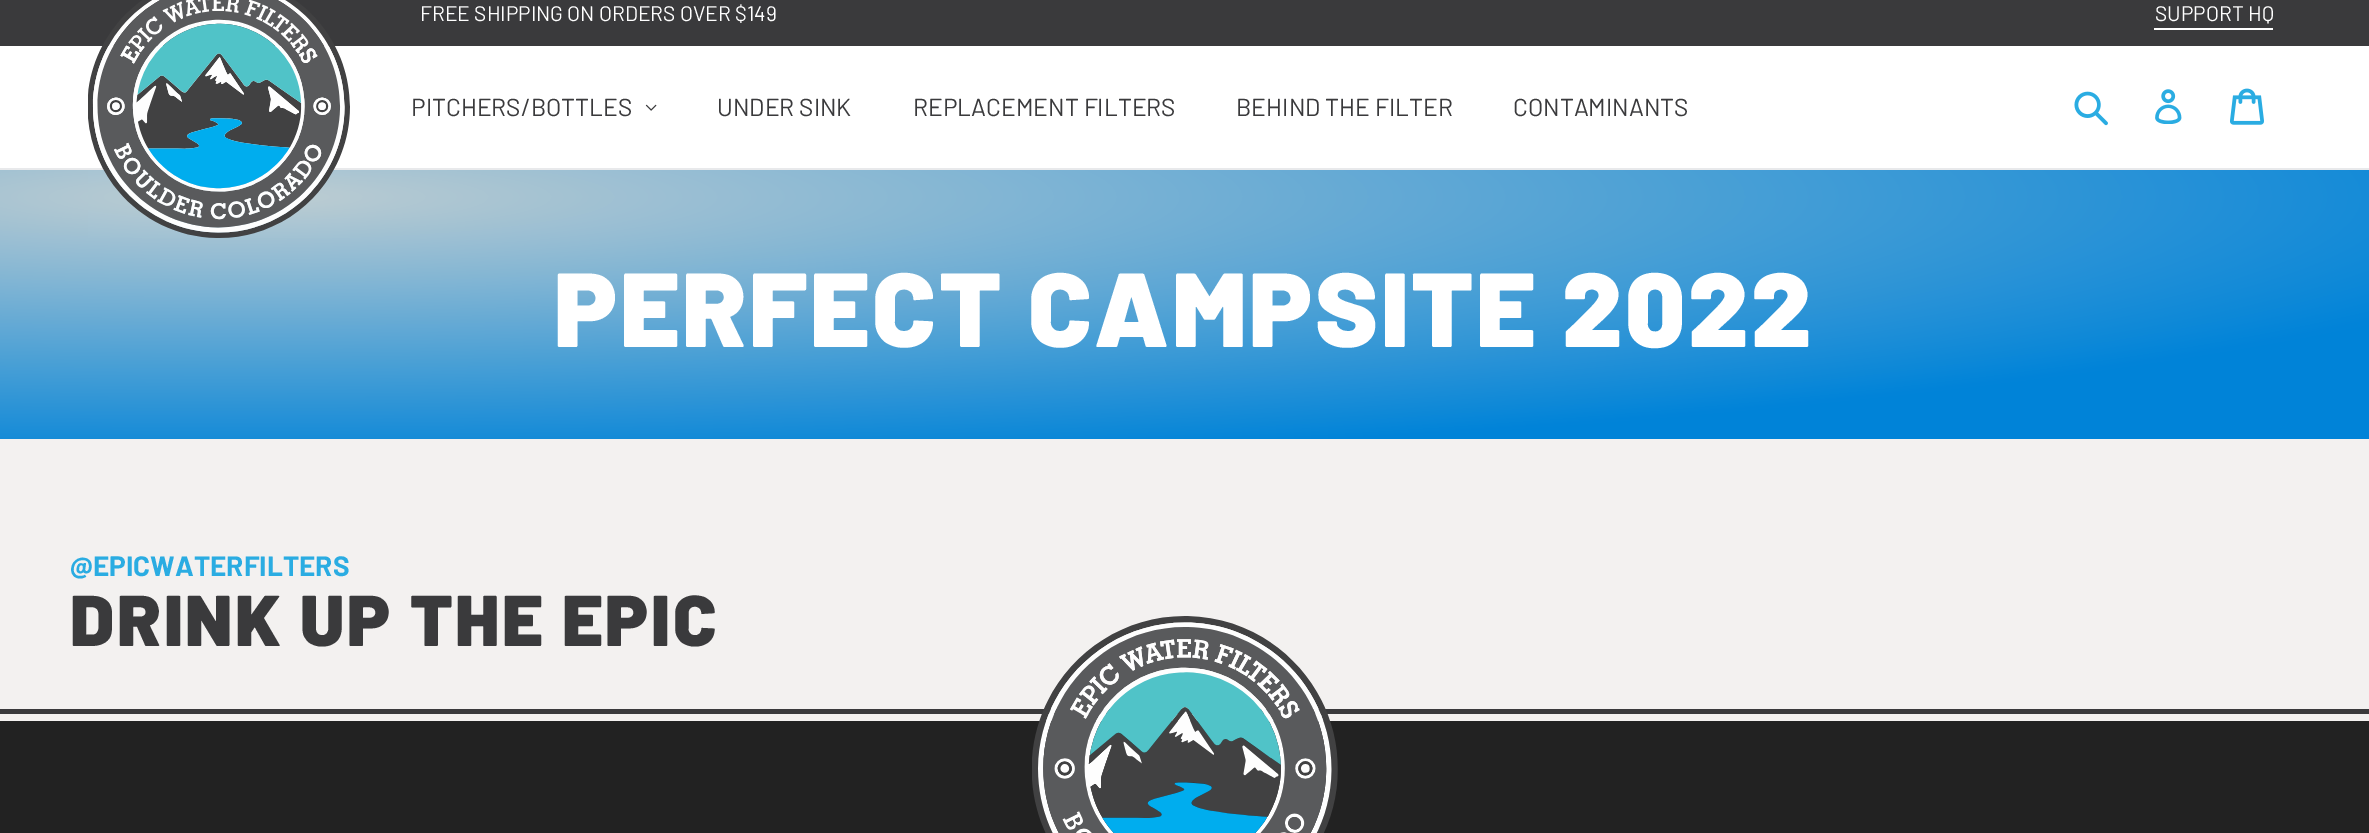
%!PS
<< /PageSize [2369 833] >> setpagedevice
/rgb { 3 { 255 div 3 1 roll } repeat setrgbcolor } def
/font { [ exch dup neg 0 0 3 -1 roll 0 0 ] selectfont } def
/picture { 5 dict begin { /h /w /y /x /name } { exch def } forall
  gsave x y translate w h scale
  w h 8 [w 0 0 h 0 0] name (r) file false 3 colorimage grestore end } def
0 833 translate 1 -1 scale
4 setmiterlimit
255 255 255 rgb
0 0 2369 833 rectfill
[
  [0 0 2369 46 58 58 60]
  [2154 28 119 2 255 255 255]
  [0 168 2369 2 232 233 235]
] { aload pop rgb rectfill } forall
gsave 0 170 moveto 2369 170 lineto 2369 439 lineto 0 439 lineto closepath clip newpath 237 197 translate 3016 343 scale
<< /ShadingType 3 /ColorSpace /DeviceRGB /Coords [0 0 0 0 0 1] /Extend [true true] /Function << /FunctionType 3 /Domain [0 1] /Functions [<< /FunctionType 2 /Domain [0 1] /C0 [0.745 0.804 0.824] /C1 [0 0.514 0.847] /N 1 >> << /FunctionType 2 /Domain [0 1] /C0 [0 0.514 0.847] /C1 [0 0.514 0.847] /N 1 >>] /Bounds [0.8] /Encode [0 1 0 1] >> >> shfill grestore
(img/1.rgb) 88 0 262 238 picture
(img/2.rgb) 645 104 12 7 picture
(img/3.rgb) 2074 91 34 35 picture
(img/4.rgb) 2155 89 27 35 picture
(img/5.rgb) 2230 88 34 37 picture
[
  [0 439 2369 282 243 241 240]
  [0 721 2369 112 34 34 34]
  [0 709 2369 5 58 58 60]
] { aload pop rgb rectfill } forall
(img/6.rgb) 1032 616 306 217 picture
/Barlow-Regular 21 font
255 255 255 rgb
420 21 moveto (FREE SHIPPING ON ORDERS OVER $149) show
2155 21 moveto (SUPPORT HQ) show
/Barlow-Regular 24.5 font
58 58 60 rgb
[
  [(PITCHERS/BOTTLES) 411 116]
  [(UNDER SINK) 717 116]
  [(REPLACEMENT FILTERS) 913 116]
  [(BEHIND THE FILTER) 1236 116]
  [(CONTAMINANTS) 1513 116]
] { aload pop moveto show } forall
/Barlow-Black 105 font
255 255 255 rgb
554 347 moveto 2.6 0 (PERFECT CAMPSITE 2022) ashow
/Barlow-Bold 28 font
42 172 226 rgb
70 576 moveto (@EPICWATERFILTERS) show
/Barlow-Black 71.75 font
58 58 60 rgb
70 646 moveto 2.6 0 (DRINK UP THE EPIC) ashow
showpage
